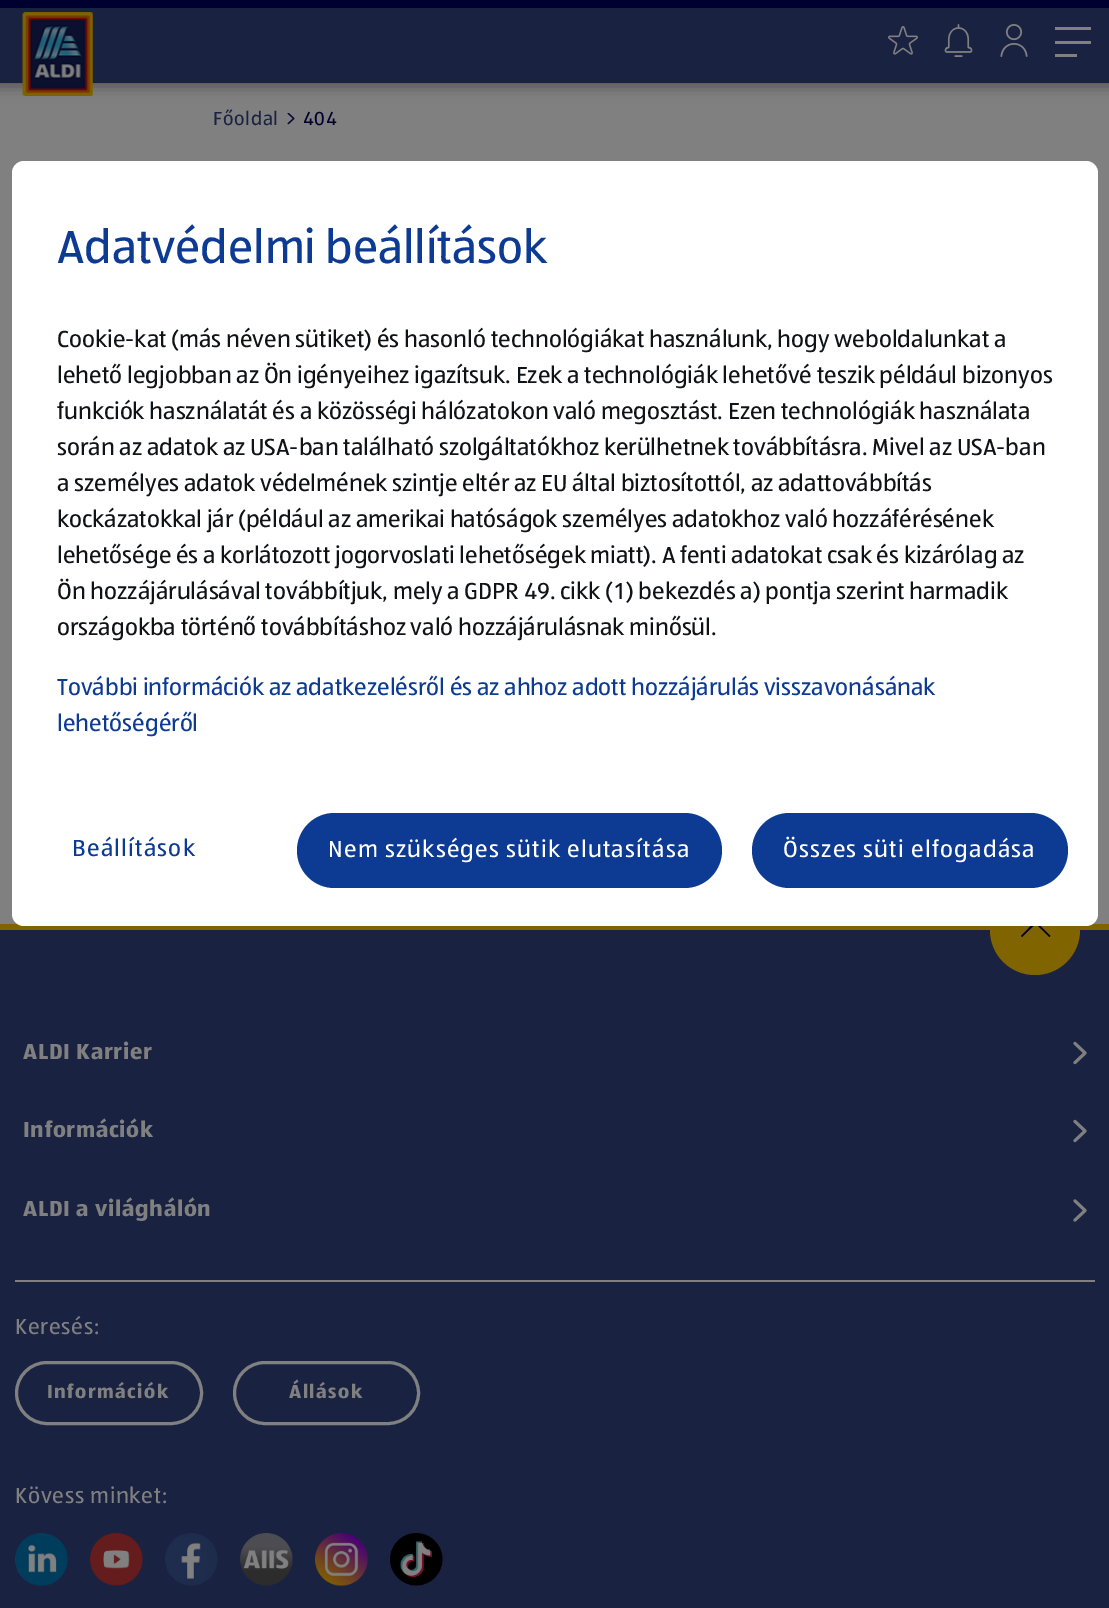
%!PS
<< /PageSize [1109 1608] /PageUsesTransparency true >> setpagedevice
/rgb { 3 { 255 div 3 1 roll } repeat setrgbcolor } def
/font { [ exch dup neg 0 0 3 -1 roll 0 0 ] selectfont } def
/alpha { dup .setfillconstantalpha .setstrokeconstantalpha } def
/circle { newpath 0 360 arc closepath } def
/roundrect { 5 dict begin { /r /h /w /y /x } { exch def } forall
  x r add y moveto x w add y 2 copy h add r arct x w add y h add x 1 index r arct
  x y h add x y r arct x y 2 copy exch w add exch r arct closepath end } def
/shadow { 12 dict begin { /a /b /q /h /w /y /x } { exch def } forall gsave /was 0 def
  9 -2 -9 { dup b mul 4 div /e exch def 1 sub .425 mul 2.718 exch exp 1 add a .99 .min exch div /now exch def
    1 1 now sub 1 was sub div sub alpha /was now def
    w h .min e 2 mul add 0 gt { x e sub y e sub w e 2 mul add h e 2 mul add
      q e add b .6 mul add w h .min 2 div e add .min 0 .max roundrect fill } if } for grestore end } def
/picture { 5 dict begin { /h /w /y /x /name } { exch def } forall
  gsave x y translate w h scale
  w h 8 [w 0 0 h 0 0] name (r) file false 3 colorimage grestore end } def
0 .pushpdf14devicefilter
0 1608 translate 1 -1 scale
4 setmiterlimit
128 128 128 rgb
0 0 1109 1608 rectfill
0 0 0 rgb
-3 -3 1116 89 0 4.5 0.1 shadow
26 34 66 rgb
0 8 1109 75 rectfill
0 0 48 rgb
0 0 1109 8 rectfill
gsave
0 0 moveto 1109 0 lineto 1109 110 lineto 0 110 lineto closepath 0 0 moveto 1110 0 lineto 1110 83 lineto 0 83 lineto closepath eoclip newpath
0 0 0 rgb
-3 -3 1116 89 0 7.5 0.3 shadow
grestore
(img/1.rgb) 22 12 71 84 picture
(img/2.rgb) 888 26 30 29 picture
(img/3.rgb) 944 24 29 33 picture
(img/4.rgb) 1000 24 28 33 picture
[
  [1055 27 36 3 128 128 128]
  [1055 41 36 3 128 128 128]
  [1055 54 22 3 128 128 128]
] { aload pop rgb rectfill } forall
(img/5.rgb) 287 113 8 12 picture
128 100 0 rgb
0 924 1109 6 rectfill
26 34 66 rgb
0 930 1109 678 rectfill
128 100 0 rgb
1035 930 45 circle fill
0 0 48 rgb
1035.5 921 moveto 1050.5 936 lineto 1049.5 937 lineto 1034.5 922.5 lineto closepath fill
1035.5 921 moveto 1037 922.5 lineto 1022 937 lineto 1021 936 lineto closepath fill
(img/6.rgb) 1073 1041 14 24 picture
(img/6.rgb) 1073 1119 14 24 picture
(img/7.rgb) 1073 1199 14 23 picture
128 128 128 rgb
15 1280 1080 2 rectfill
3 setlinewidth
16.5 1362.5 185 61 30.5 roundrect stroke
234.5 1362.5 184 61 30.5 roundrect stroke
(img/8.rgb) 15 1533 53 53 picture
(img/9.rgb) 90 1533 53 53 picture
(img/10.rgb) 165 1533 53 53 picture
(img/11.rgb) 240 1533 53 53 picture
(img/12.rgb) 315 1533 53 53 picture
(img/13.rgb) 390 1533 53 53 picture
255 255 255 rgb
12 161 1086 765 12 roundrect fill
13 58 147 rgb
297 813 425 75 37.5 roundrect fill
752 813 316 75 37.5 roundrect fill
/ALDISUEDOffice-Regular 19.5 font
26 34 66 rgb
213 125 moveto 0.75 0 (Főoldal) ashow
0 0 48 rgb
303 125 moveto 0.75 0 (404) ashow
/ALDISUEDOffice-Bold 22.5 font
128 128 128 rgb
23 1059 moveto 0.75 0 (ALDI Karrier) ashow
23 1137 moveto 0.75 0 (Információk) ashow
23 1216 moveto 0.75 0 (ALDI a világhálón) ashow
/ALDISUEDOffice-Regular 22.5 font
15 1334 moveto 0.75 0 (Keresés:) ashow
/ALDISUEDOffice-Bold 19.5 font
47 1398 moveto 1.5 0 (Információk) ashow
289 1398 moveto 1.5 0 (Állások) ashow
/ALDISUEDOffice-Regular 22.5 font
15 1503 moveto 0.75 0 (Kövess minket:) ashow
/ALDISUEDOffice-Regular 48 font
13 58 147 rgb
57 263 moveto (Adatvédelmi beállítások) show
/ALDISUEDOffice-Regular 24 font
16 19 22 rgb
[
  [(Cookie-kat \(más néven sütiket\) és hasonló technológiákat használunk, hogy weboldalunkat a) 57 347]
  [(lehető legjobban az Ön igényeihez igazítsuk. Ezek a technológiák lehetővé teszik például bizonyos) 57 383]
  [(funkciók használatát és a közösségi hálózatokon való megosztást. Ezen technológiák használata) 57 419]
  [(során az adatok az USA-ban található szolgáltatókhoz kerülhetnek továbbításra. Mivel az USA-ban) 57 455]
  [(a személyes adatok védelmének szintje eltér az EU által biztosítottól, az adattovábbítás) 57 491]
  [(kockázatokkal jár \(például az amerikai hatóságok személyes adatokhoz való hozzáférésének) 57 527]
  [(lehetősége és a korlátozott jogorvoslati lehetőségek miatt\). A fenti adatokat csak és kizárólag az) 57 563]
  [(Ön hozzájárulásával továbbítjuk, mely a GDPR 49. cikk \(1\) bekezdés a\) pontja szerint harmadik) 57 599]
  [(országokba történő továbbításhoz való hozzájárulásnak minősül.) 57 635]
] { aload pop moveto show } forall
13 58 147 rgb
57 695 moveto (További információk az adatkezelésről és az ahhoz adott hozzájárulás visszavonásának) show
57 731 moveto (lehetőségéről) show
72 856 moveto 1.2 0 (Beállítások) ashow
255 255 255 rgb
328 857 moveto 1.2 0 (Nem szükséges sütik elutasítása) ashow
783 857 moveto 1.2 0 (Összes süti elfogadása) ashow
.poppdf14devicefilter showpage
